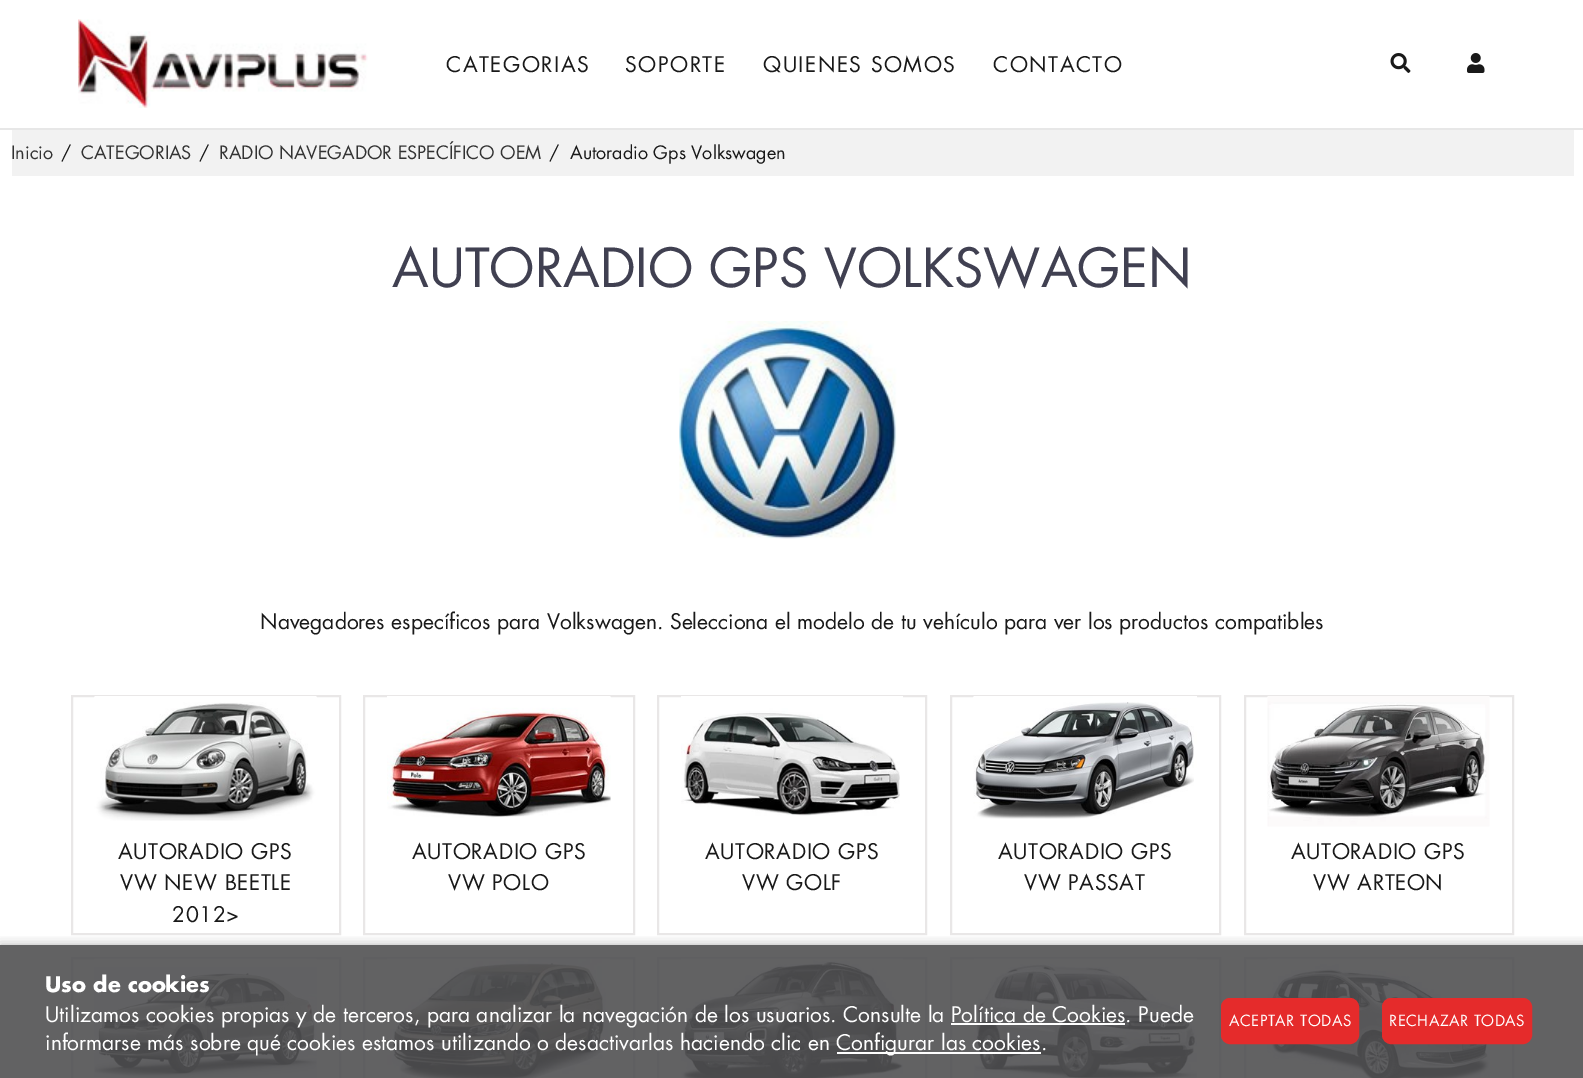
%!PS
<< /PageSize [1583 1078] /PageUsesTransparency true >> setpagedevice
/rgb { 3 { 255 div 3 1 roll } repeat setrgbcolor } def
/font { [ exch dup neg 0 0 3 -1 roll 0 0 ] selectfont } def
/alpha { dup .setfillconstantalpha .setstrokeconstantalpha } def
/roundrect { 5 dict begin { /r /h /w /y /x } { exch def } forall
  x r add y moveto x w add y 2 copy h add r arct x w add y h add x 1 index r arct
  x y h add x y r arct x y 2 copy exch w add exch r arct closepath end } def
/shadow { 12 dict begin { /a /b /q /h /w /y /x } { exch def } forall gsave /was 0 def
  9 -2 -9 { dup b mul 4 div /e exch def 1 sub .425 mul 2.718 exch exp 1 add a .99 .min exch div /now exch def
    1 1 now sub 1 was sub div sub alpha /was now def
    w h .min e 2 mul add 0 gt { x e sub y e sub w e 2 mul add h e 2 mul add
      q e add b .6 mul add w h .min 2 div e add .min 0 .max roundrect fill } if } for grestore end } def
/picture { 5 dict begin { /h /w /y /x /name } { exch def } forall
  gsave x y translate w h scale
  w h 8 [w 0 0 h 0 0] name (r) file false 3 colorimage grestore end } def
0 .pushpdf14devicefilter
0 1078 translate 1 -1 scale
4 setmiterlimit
255 255 255 rgb
0 0 1583 1078 rectfill
98 98 99 rgb
0 945 1583 133 rectfill
231 231 231 rgb
0 128 1583 2 rectfill
(img/1.rgb) 78 19 290 89 picture
(img/2.rgb) 1390 53 21 20 picture
(img/3.rgb) 1467 53 18 20 picture
242 242 242 rgb
12 130 1562 46 rectfill
(img/4.rgb) 679 321 218 218 picture
233 231 231 rgb
2 setlinewidth
72 696 268 238 rectstroke
(img/5.rgb) 94 696 223 125 picture
364 696 270 238 rectstroke
(img/6.rgb) 387 696 224 122 picture
658 696 268 238 rectstroke
(img/7.rgb) 681 696 222 120 picture
951 696 269 238 rectstroke
(img/8.rgb) 973 696 224 123 picture
1245 696 268 238 rectstroke
(img/9.rgb) 1267 696 223 131 picture
95 95 97 rgb
72 958 268 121 rectstroke
(img/10.rgb) 94 958 223 120 picture
364 958 270 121 rectstroke
(img/11.rgb) 387 958 223 120 picture
658 958 268 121 rectstroke
(img/12.rgb) 681 958 222 120 picture
951 958 269 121 rectstroke
(img/13.rgb) 974 958 223 120 picture
1245 958 268 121 rectstroke
(img/14.rgb) 1267 958 223 120 picture
gsave
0 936 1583 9 rectclip
0 0 0 rgb
0 945 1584 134 0 6 0.3 shadow
grestore
255 255 255 rgb
951 1023 174 2 rectfill
837 1052 204 2 rectfill
229 43 43 rgb
1222.5 999.5 135 43 7.5 roundrect gsave fill grestore
3 setlinewidth
stroke
1383.5 999.5 147 43 7.5 roundrect gsave fill grestore
stroke
/Futura-Regular 21 font
25 25 25 rgb
446 72 moveto 1.5 0 (CATEGORIAS) ashow
625 72 moveto 1.5 0 (SOPORTE) ashow
763 72 moveto 1.5 0 (QUIENES SOMOS) ashow
993 72 moveto 1.5 0 (CONTACTO) ashow
/Futura-Regular 18 font
51 51 51 rgb
11 159 moveto (Inicio) show
25 25 25 rgb
61 159 moveto (/) show
51 51 51 rgb
81 159 moveto (CATEGORIAS) show
25 25 25 rgb
199 159 moveto (/) show
51 51 51 rgb
219 159 moveto (RADIO NAVEGADOR ESPECÍFICO OEM) show
25 25 25 rgb
549 159 moveto (/) show
570 159 moveto (Autoradio Gps Volkswagen) show
/Futura-Regular 52.5 font
64 64 81 rgb
392 287 moveto (AUTORADIO GPS VOLKSWAGEN) show
/Futura-Regular 21 font
25 25 25 rgb
260 629 moveto (Navegadores específicos para Volkswagen. Selecciona el modelo de tu vehículo para ver los productos compatibles) show
118 859 moveto 0.6 0 (AUTORADIO GPS) ashow
120 890 moveto 0.6 0 (VW NEW BEETLE) ashow
172 922 moveto 0.6 0 (2012>) ashow
412 859 moveto 0.6 0 (AUTORADIO GPS) ashow
448 890 moveto 0.6 0 (VW POLO) ashow
705 859 moveto 0.6 0 (AUTORADIO GPS) ashow
742 890 moveto 0.6 0 (VW GOLF) ashow
998 859 moveto 0.6 0 (AUTORADIO GPS) ashow
1024 890 moveto 0.6 0 (VW PASSAT) ashow
1291 859 moveto 0.6 0 (AUTORADIO GPS) ashow
1313 890 moveto 0.6 0 (VW ARTEON) ashow
/Futura-Bold 21 font
255 255 255 rgb
45 992 moveto (Uso de cookies) show
/Futura-Regular 21 font
[
  [(Utilizamos cookies propias y de terceros, para analizar la navegación de los usuarios. Consulte la Política de Cookies. Puede) 45 1022]
  [(informarse más sobre qué cookies estamos utilizando o desactivarlas haciendo clic en) 45 1050]
  [(Configurar las cookies.) 836 1050]
] { aload pop moveto show } forall
/Futura-Regular 15 font
1229 1026 moveto 0.5 0 (ACEPTAR TODAS) ashow
1389 1026 moveto 0.5 0 (RECHAZAR TODAS) ashow
.poppdf14devicefilter showpage
